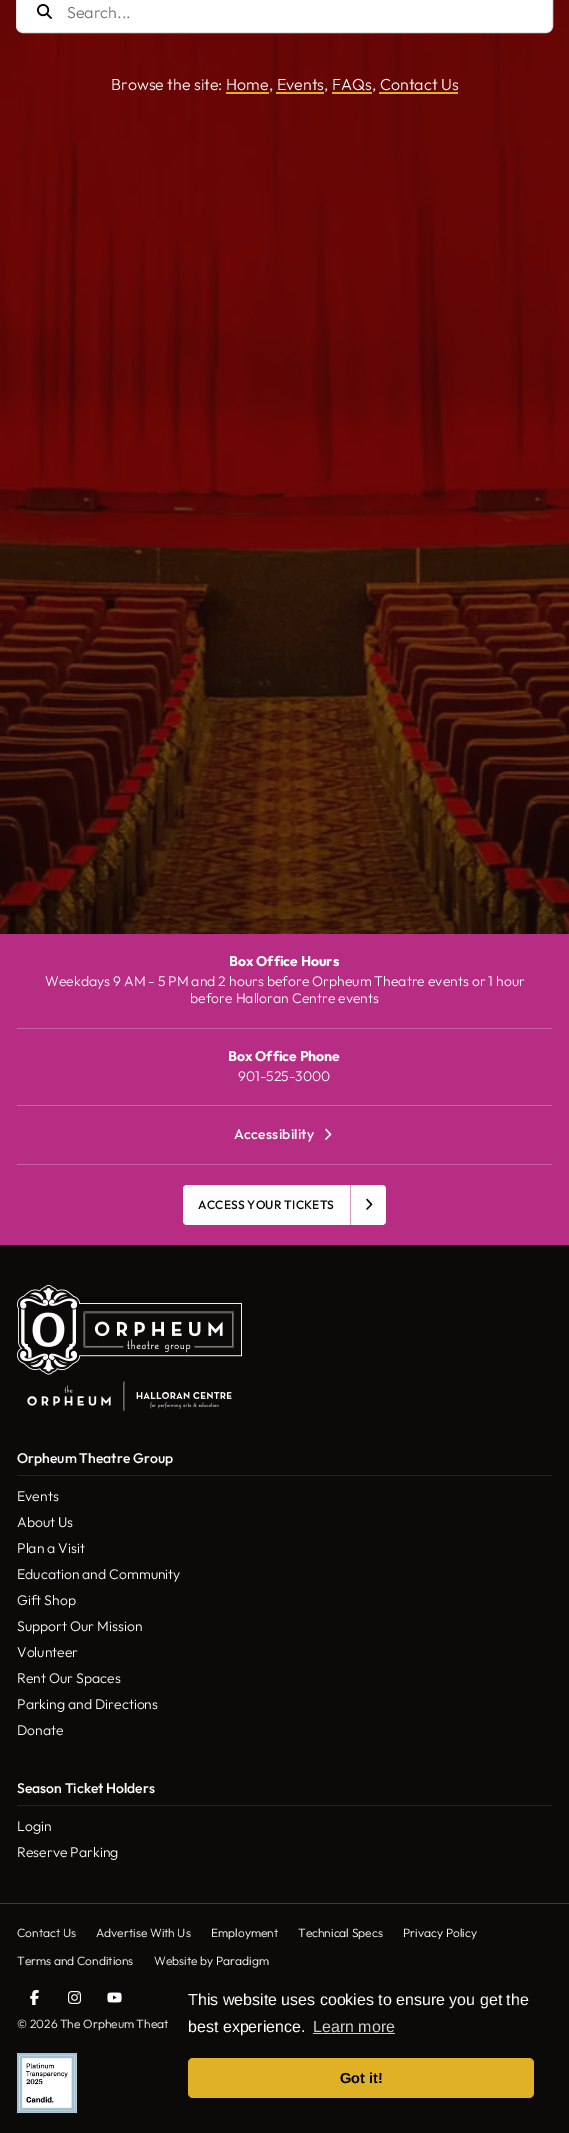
%!PS
<< /PageSize [569 2133] >> setpagedevice
/rgb { 3 { 255 div 3 1 roll } repeat setrgbcolor } def
/font { [ exch dup neg 0 0 3 -1 roll 0 0 ] selectfont } def
/roundrect { 5 dict begin { /r /h /w /y /x } { exch def } forall
  x r add y moveto x w add y 2 copy h add r arct x w add y h add x 1 index r arct
  x y h add x y r arct x y 2 copy exch w add exch r arct closepath end } def
/picture { 5 dict begin { /h /w /y /x /name } { exch def } forall
  gsave x y translate w h scale
  w h 8 [w 0 0 h 0 0] name (r) file false 3 colorimage grestore end } def
0 2133 translate 1 -1 scale
4 setmiterlimit
184 45 132 rgb
0 0 569 2133 rectfill
12 10 9 rgb
0 0 569 934 rectfill
(img/1.rgb) 0 0 569 934 picture
231 229 228 rgb
16.5 -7.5 536 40 6.5 roundrect stroke
255 255 255 rgb
17 -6 535 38 6 roundrect fill
(img/2.rgb) 37 4 15 15 picture
[
  [226 92 43 2 224 176 37]
  [276 92 48 2 224 176 37]
  [332 92 40 2 224 176 37]
  [379 92 79 2 224 176 37]
  [17 1028 535 1 202 98 163]
  [17 1105 535 1 202 98 163]
] { aload pop rgb rectfill } forall
255 255 255 rgb
1.4 setlinewidth
1 setlinecap
1 setlinejoin
326 1139 moveto 330.5 1134.5 lineto 326 1129.5 lineto stroke
202 98 163 rgb
17 1164 535 1 rectfill
220 150 194 rgb
183 1185 203 40 4 roundrect fill
255 255 255 rgb
187 1185 moveto 350 1185 lineto 350 1225 lineto 187 1225 lineto 185 1225 183 1223 183 1221 curveto 183 1189 lineto 183 1187 185 1185 187 1185 curveto closepath fill
351 1185 moveto 382 1185 lineto 384 1185 386 1187 386 1189 curveto 386 1221 lineto 386 1223 384 1225 382 1225 curveto 351 1225 lineto closepath fill
12 10 9 rgb
367 1209 moveto 371.5 1204.5 lineto 367 1199.5 lineto stroke
0 1245 569 888 rectfill
(img/3.rgb) 17 1285 225 126 picture
[
  [17 1475 535 1 36 35 34]
  [17 1805 535 1 36 35 34]
  [0 1903 569 1 61 59 58]
] { aload pop rgb rectfill } forall
(img/4.rgb) 30 1990 9 15 picture
(img/5.rgb) 68 1991 14 13 picture
(img/6.rgb) 107 1992 15 11 picture
(img/7.rgb) 17 2053 60 60 picture
206 206 206 rgb
313 2033 82 1 rectfill
224 176 37 rgb
188 2058 346 40 5 roundrect fill
/Outfit-Light 16 font
120 113 108 rgb
67 18 moveto (Search...) show
255 255 255 rgb
[
  [(Browse the site: Home) 111 90]
  [(, Events) 269 90]
  [(, FAQs) 324 90]
  [(, Contact Us) 372 90]
] { aload pop moveto show } forall
/Outfit-Bold 14 font
229 966 moveto (Box Office Hours) show
/Outfit-Light 14 font
45 986 moveto (Weekdays 9 AM - 5 PM and 2 hours before Orpheum Theatre events or 1 hour) show
190 1003 moveto (before Halloran Centre events) show
/Outfit-Bold 14 font
228 1061 moveto (Box Office Phone) show
/Outfit-Light 14 font
238 1081 moveto (901-525-3000) show
/Outfit-Medium 14 font
234 1139 moveto 0.3 0 (Accessibility) ashow
/Outfit-Medium 12 font
12 10 9 rgb
198 1209 moveto 0.25 0 (ACCESS YOUR TICKETS) ashow
/Outfit-Medium 14 font
255 255 255 rgb
17 1463 moveto (Orpheum Theatre Group) show
/Outfit-Light 14 font
[
  [(Events) 17 1501]
  [(About Us) 17 1527]
  [(Plan a Visit) 17 1553]
  [(Education and Community) 17 1579]
  [(Gift Shop) 17 1605]
  [(Support Our Mission) 17 1631]
  [(Volunteer) 17 1657]
  [(Rent Our Spaces) 17 1683]
  [(Parking and Directions) 17 1709]
  [(Donate) 17 1735]
] { aload pop moveto show } forall
/Outfit-Medium 14 font
17 1793 moveto (Season Ticket Holders) show
/Outfit-Light 14 font
17 1831 moveto (Login) show
17 1857 moveto (Reserve Parking) show
/Outfit-Light 12 font
[
  [(Contact Us) 17 1937]
  [(Advertise With Us) 96 1937]
  [(Employment) 211 1937]
  [(Technical Specs) 298 1937]
  [(Privacy Policy) 403 1937]
  [(Terms and Conditions) 17 1965]
  [(Website by Paradigm) 154 1965]
  [(© 2026 The Orpheum Theat) 17 2028]
] { aload pop moveto show } forall
/LiberationSans-Regular 16 font
188 2005 moveto (This website uses cookies to ensure you get the) show
188 2032 moveto (best experience.) show
206 206 206 rgb
313 2032 moveto (Learn more) show
/LiberationSans-Bold 14.5 font
0 0 0 rgb
340 2083 moveto (Got it!) show
showpage
